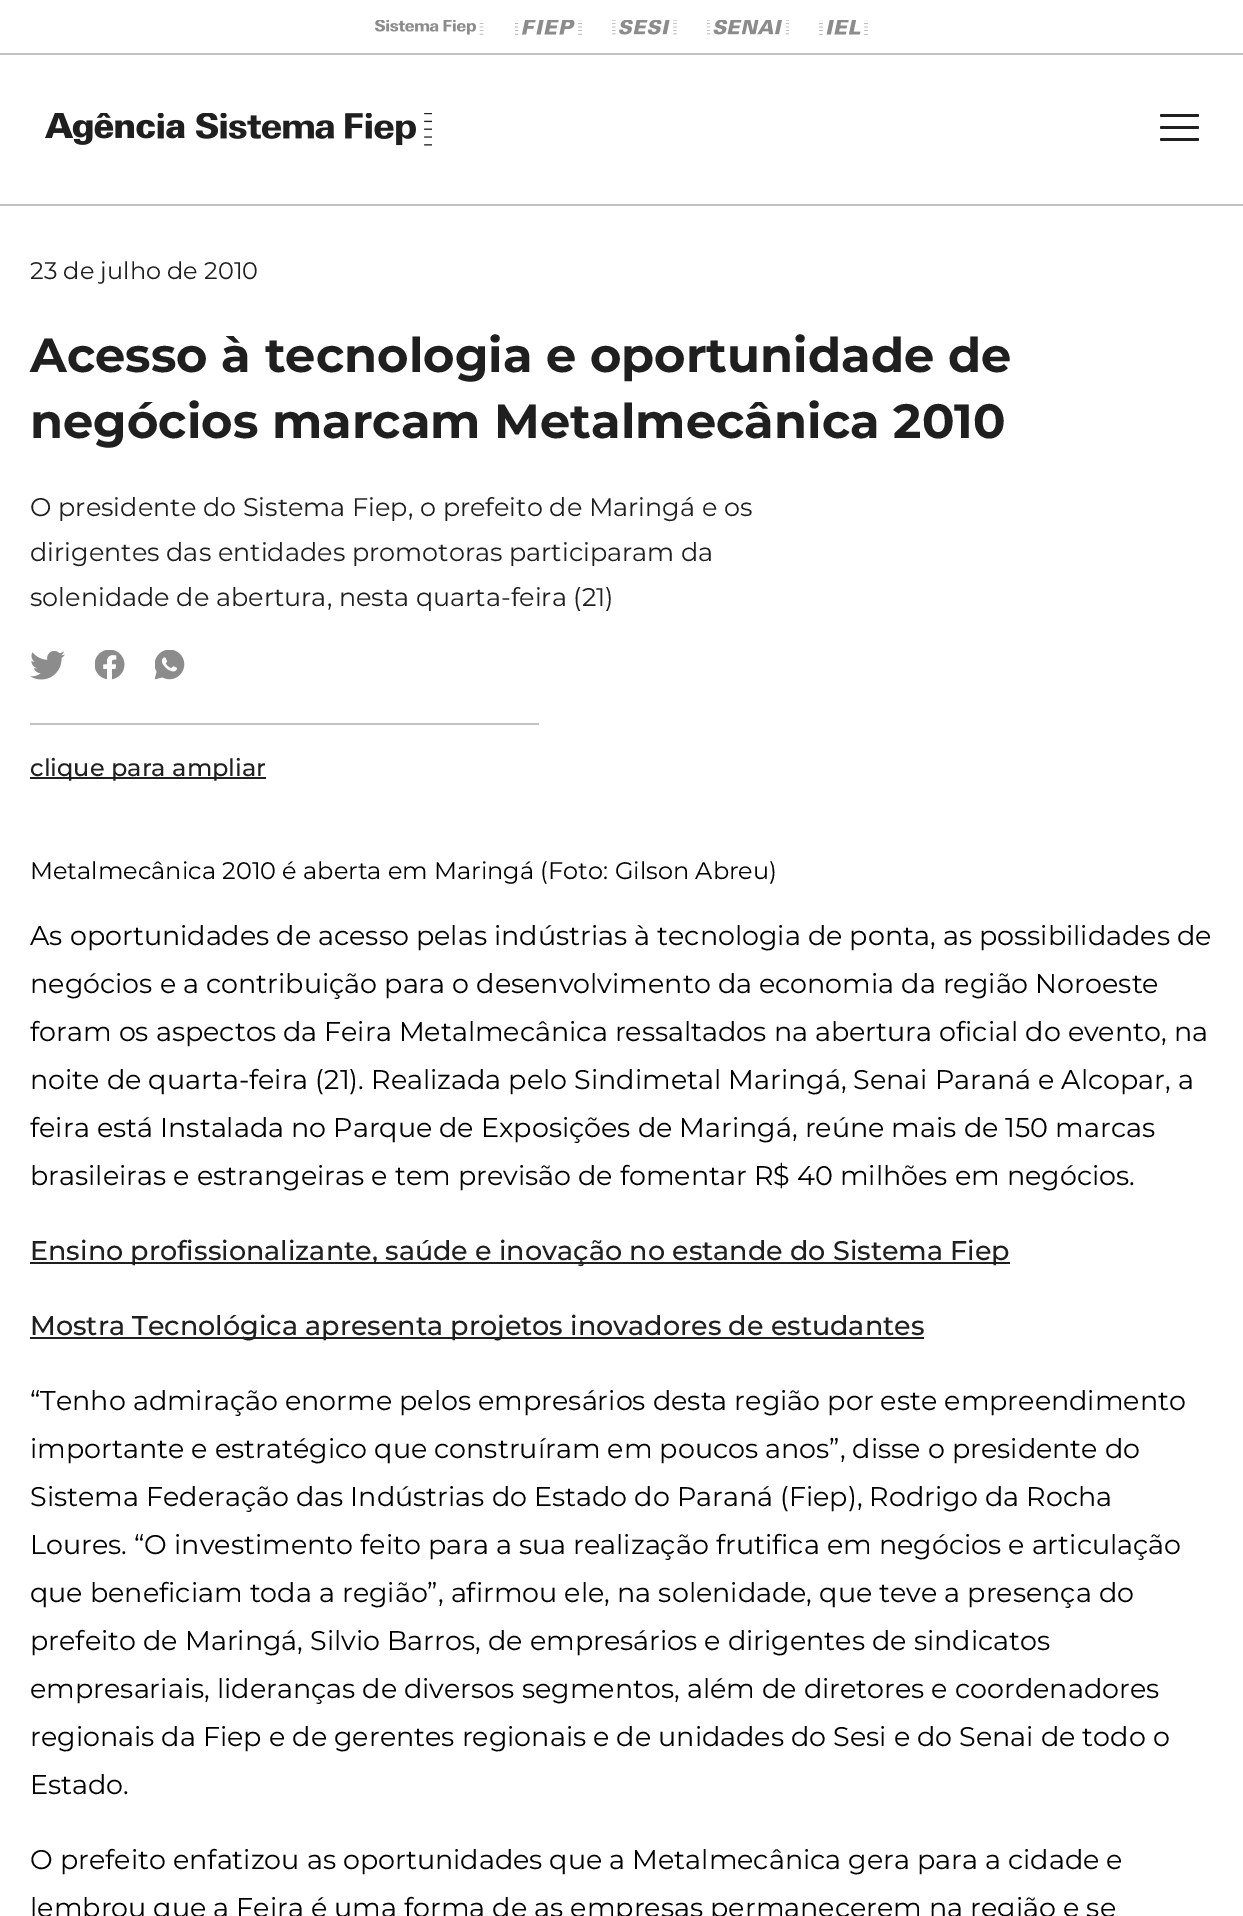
%!PS
<< /PageSize [1243 1916] >> setpagedevice
/rgb { 3 { 255 div 3 1 roll } repeat setrgbcolor } def
/font { [ exch dup neg 0 0 3 -1 roll 0 0 ] selectfont } def
/roundrect { 5 dict begin { /r /h /w /y /x } { exch def } forall
  x r add y moveto x w add y 2 copy h add r arct x w add y h add x 1 index r arct
  x y h add x y r arct x y 2 copy exch w add exch r arct closepath end } def
/picture { 5 dict begin { /h /w /y /x /name } { exch def } forall
  gsave x y translate w h scale
  w h 8 [w 0 0 h 0 0] name (r) file false 3 colorimage grestore end } def
0 1916 translate 1 -1 scale
4 setmiterlimit
255 255 255 rgb
0 0 1243 1916 rectfill
194 194 194 rgb
0 53 1243 2 rectfill
(img/1.rgb) 375 20 109 15 picture
(img/2.rgb) 515 20 67 15 picture
(img/3.rgb) 612 20 65 15 picture
(img/4.rgb) 707 20 82 15 picture
(img/5.rgb) 819 20 49 15 picture
0 204 1243 2 rectfill
(img/6.rgb) 45 113 387 33 picture
31 31 31 rgb
1160 114 39 3 1.5 roundrect fill
1160 126 39 3 1.5 roundrect fill
1160 138 39 3 1.5 roundrect fill
(img/7.rgb) 30 651 35 29 picture
(img/8.rgb) 95 650 30 30 picture
(img/9.rgb) 155 650 30 30 picture
[
  [30 723 509 2 194 194 194]
  [30 777 236 2 31 31 31]
  [30 1262 980 2 31 31 31]
  [30 1337 894 2 31 31 31]
] { aload pop rgb rectfill } forall
/Montserrat-Regular 24 font
30 279 moveto (23 de julho de 2010) show
/Montserrat-Bold 48 font
30 372 moveto (Acesso à tecnologia e oportunidade de) show
30 438 moveto (negócios marcam Metalmecânica 2010) show
/Montserrat-Regular 25.5 font
[
  [(O presidente do Sistema Fiep, o prefeito de Maringá e os) 30 516]
  [(dirigentes das entidades promotoras participaram da) 30 561]
  [(solenidade de abertura, nesta quarta-feira \(21\)) 30 606]
] { aload pop moveto show } forall
/Montserrat-Medium 24 font
30 776 moveto (clique para ampliar) show
/Montserrat-Regular 24 font
0 0 0 rgb
30 879 moveto (Metalmecânica 2010 é aberta em Maringá \(Foto: Gilson Abreu\)) show
/Montserrat-Regular 27 font
[
  [(As oportunidades de acesso pelas indústrias à tecnologia de ponta, as possibilidades de) 30 945]
  [(negócios e a contribuição para o desenvolvimento da economia da região Noroeste) 30 993]
  [(foram os aspectos da Feira Metalmecânica ressaltados na abertura oficial do evento, na) 30 1041]
  [(noite de quarta-feira \(21\). Realizada pelo Sindimetal Maringá, Senai Paraná e Alcopar, a) 30 1089]
  [(feira está Instalada no Parque de Exposições de Maringá, reúne mais de 150 marcas) 30 1137]
  [(brasileiras e estrangeiras e tem previsão de fomentar R$ 40 milhões em negócios.) 30 1185]
] { aload pop moveto show } forall
/Montserrat-Medium 27 font
31 31 31 rgb
30 1260 moveto (Ensino profissionalizante, saúde e inovação no estande do Sistema Fiep) show
30 1335 moveto (Mostra Tecnológica apresenta projetos inovadores de estudantes) show
/Montserrat-Regular 27 font
0 0 0 rgb
[
  [(“Tenho admiração enorme pelos empresários desta região por este empreendimento) 30 1410]
  [(importante e estratégico que construíram em poucos anos”, disse o presidente do) 30 1458]
  [(Sistema Federação das Indústrias do Estado do Paraná \(Fiep\), Rodrigo da Rocha) 30 1506]
  [(Loures. “O investimento feito para a sua realização frutifica em negócios e articulação) 30 1554]
  [(que beneficiam toda a região”, afirmou ele, na solenidade, que teve a presença do) 30 1602]
  [(prefeito de Maringá, Silvio Barros, de empresários e dirigentes de sindicatos) 30 1650]
  [(empresariais, lideranças de diversos segmentos, além de diretores e coordenadores) 30 1698]
  [(regionais da Fiep e de gerentes regionais e de unidades do Sesi e do Senai de todo o) 30 1746]
  [(Estado.) 30 1794]
  [(O prefeito enfatizou as oportunidades que a Metalmecânica gera para a cidade e) 30 1869]
  [(lembrou que a Feira é uma forma de as empresas permanecerem na região e se) 30 1917]
] { aload pop moveto show } forall
showpage
